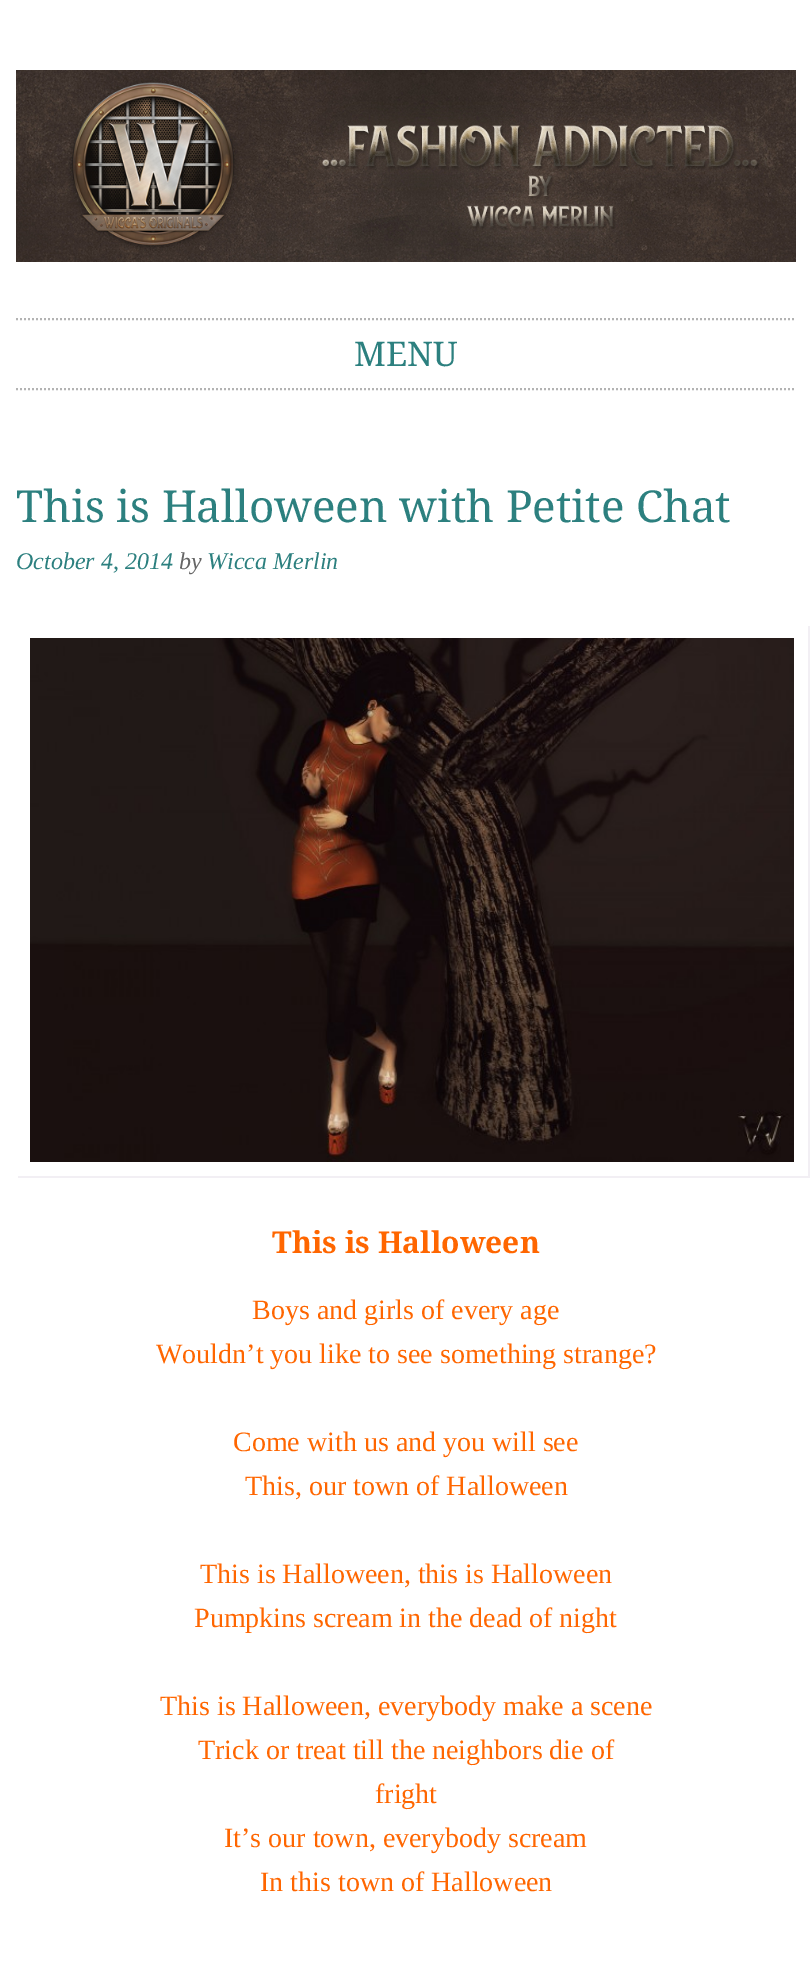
%!PS
<< /PageSize [811 1974] >> setpagedevice
/rgb { 3 { 255 div 3 1 roll } repeat setrgbcolor } def
/font { [ exch dup neg 0 0 3 -1 roll 0 0 ] selectfont } def
/picture { 5 dict begin { /h /w /y /x /name } { exch def } forall
  gsave x y translate w h scale
  w h 8 [w 0 0 h 0 0] name (r) file false 3 colorimage grestore end } def
0 1974 translate 1 -1 scale
4 setmiterlimit
255 255 255 rgb
0 0 811 1974 rectfill
(img/1.rgb) 16 70 780 192 picture
179 179 179 rgb
2 setlinewidth
[2 2] 0 setdash
16 319 moveto 796 319 lineto stroke
16 389 moveto 796 389 lineto stroke
242 239 244 rgb
18 1176 moveto 18 1178 lineto 810 1178 lineto 810 626 lineto 808 626 lineto 808 1176 lineto closepath fill
(img/2.rgb) 30 638 764 524 picture
/DroidSerif-Regular 34 font
44 128 127 rgb
354 366 moveto (MENU) show
/DroidSerif-Regular 44 font
16 522 moveto (This is Halloween with Petite Chat) show
/LiberationSerif-Italic 24 font
16 569 moveto (October 4, 2014) show
102 102 102 rgb
179 569 moveto (by) show
44 128 127 rgb
207 569 moveto (Wicca Merlin) show
/DroidSerif-Bold 30 font
255 102 0 rgb
272 1253 moveto (This is Halloween) show
/LiberationSerif-Regular 28 font
[
  [(Boys and girls of every age) 252 1319]
  [(Wouldn’t you like to see something strange?) 156 1363]
  [(Come with us and you will see) 233 1451]
  [(This, our town of Halloween) 245 1495]
  [(This is Halloween, this is Halloween) 200 1583]
  [(Pumpkins scream in the dead of night) 194 1627]
  [(This is Halloween, everybody make a scene) 160 1715]
  [(Trick or treat till the neighbors die of) 198 1759]
  [(fright) 375 1803]
  [(It’s our town, everybody scream) 224 1847]
  [(In this town of Halloween) 260 1891]
] { aload pop moveto show } forall
showpage
